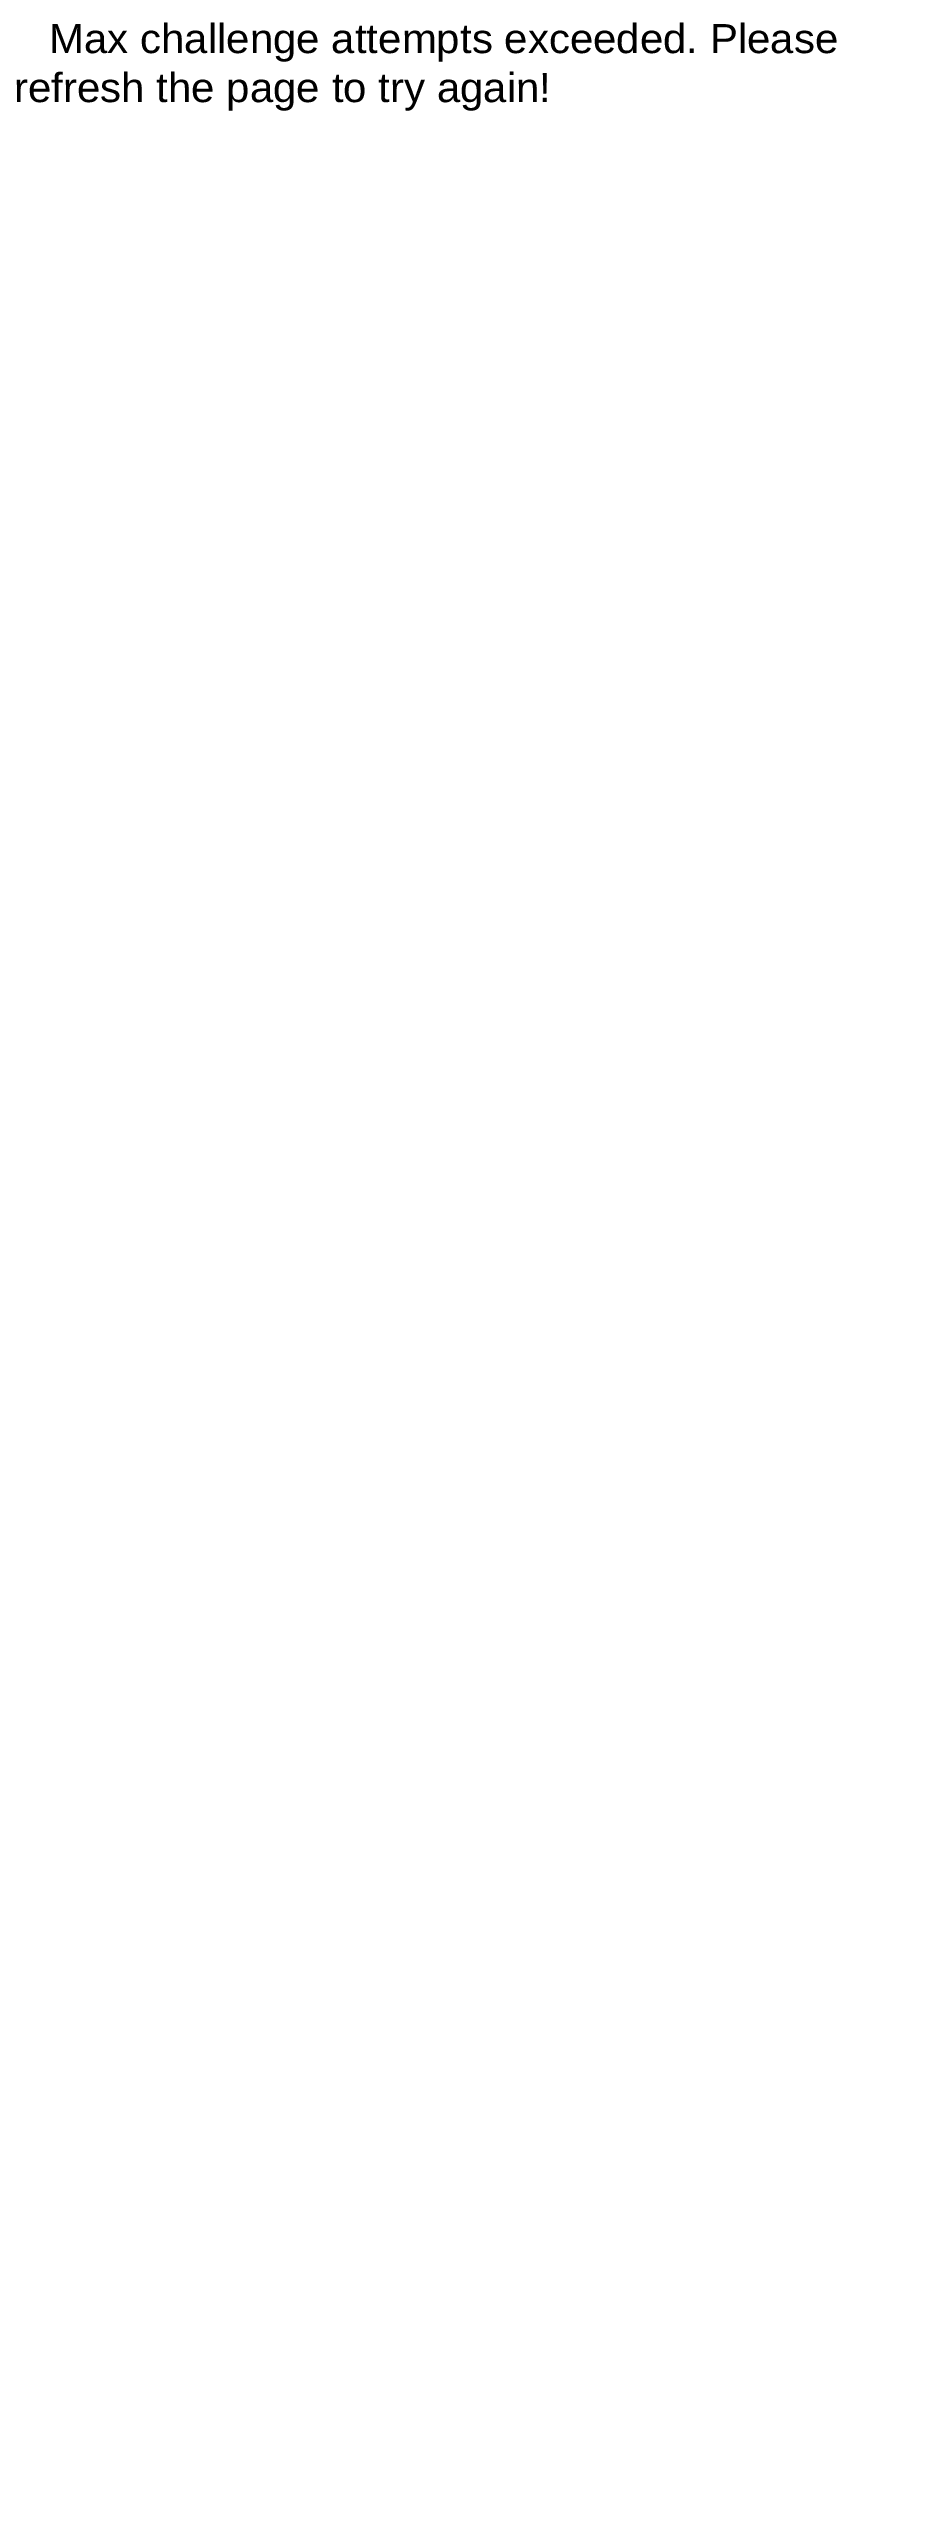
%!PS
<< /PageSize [948 2522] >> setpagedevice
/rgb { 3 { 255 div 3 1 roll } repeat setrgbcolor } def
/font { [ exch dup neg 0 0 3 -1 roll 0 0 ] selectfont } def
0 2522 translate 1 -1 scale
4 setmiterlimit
255 255 255 rgb
0 0 948 2522 rectfill
/LiberationSans-Regular 42 font
0 0 0 rgb
49 53 moveto (Max challenge attempts exceeded. Please) show
14 102 moveto (refresh the page to try again!) show
showpage
